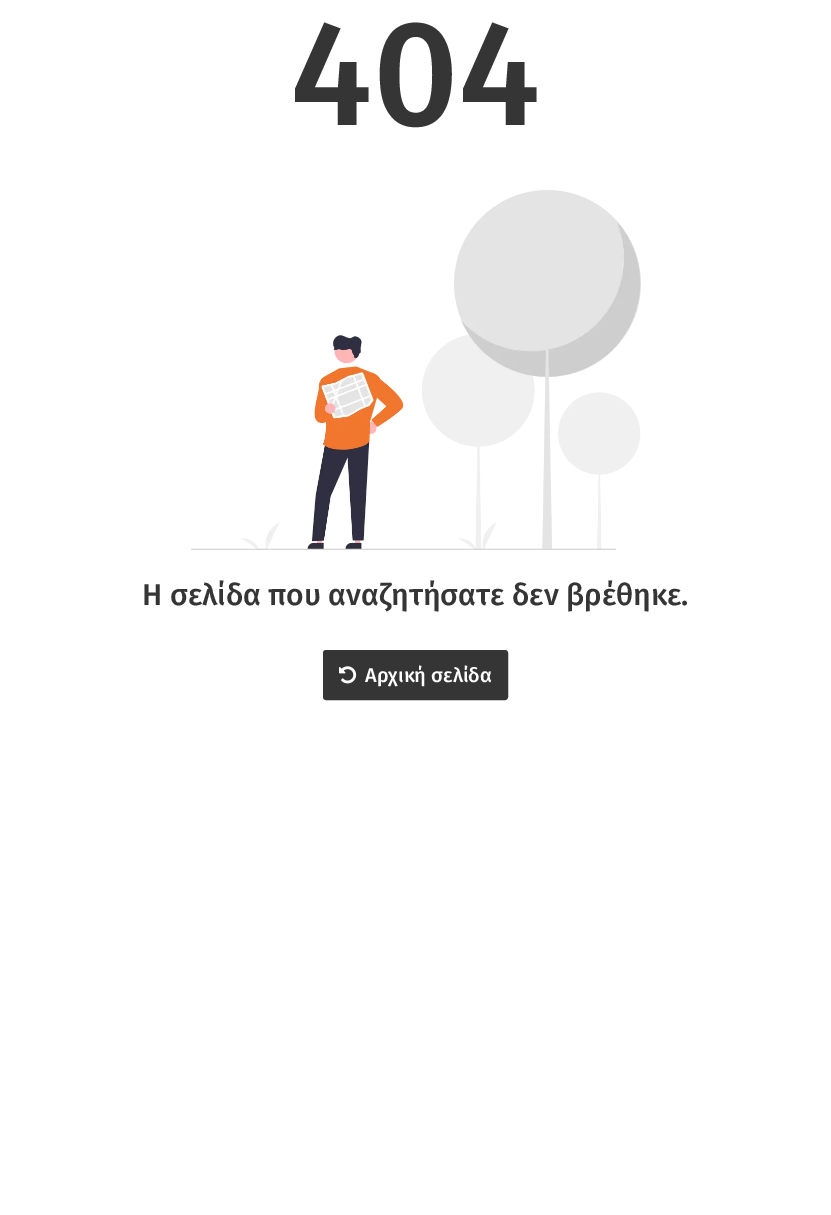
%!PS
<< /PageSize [831 1215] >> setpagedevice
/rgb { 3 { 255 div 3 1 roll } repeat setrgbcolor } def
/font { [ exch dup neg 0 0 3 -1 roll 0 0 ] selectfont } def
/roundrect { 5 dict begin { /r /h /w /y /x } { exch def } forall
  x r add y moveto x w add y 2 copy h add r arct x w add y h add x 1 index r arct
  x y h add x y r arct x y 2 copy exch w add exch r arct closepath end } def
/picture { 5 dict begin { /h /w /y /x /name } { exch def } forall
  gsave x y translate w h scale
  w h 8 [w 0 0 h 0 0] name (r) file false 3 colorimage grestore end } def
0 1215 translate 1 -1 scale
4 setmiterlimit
255 255 255 rgb
0 0 831 1215 rectfill
(img/1.rgb) 191 190 450 360 picture
53 53 53 rgb
324 651 183 48 2 roundrect gsave fill grestore
2 setlinewidth
stroke
(img/2.rgb) 339 666 18 18 picture
/FiraSans-Medium 150 font
290 125 moveto (404) show
/FiraSans-Medium 30 font
142 605 moveto (Η σελίδα που αναζητήσατε δεν βρέθηκε.) show
/FiraSans-Medium 20 font
255 255 255 rgb
365 682 moveto (Αρχική σελίδα) show
showpage
